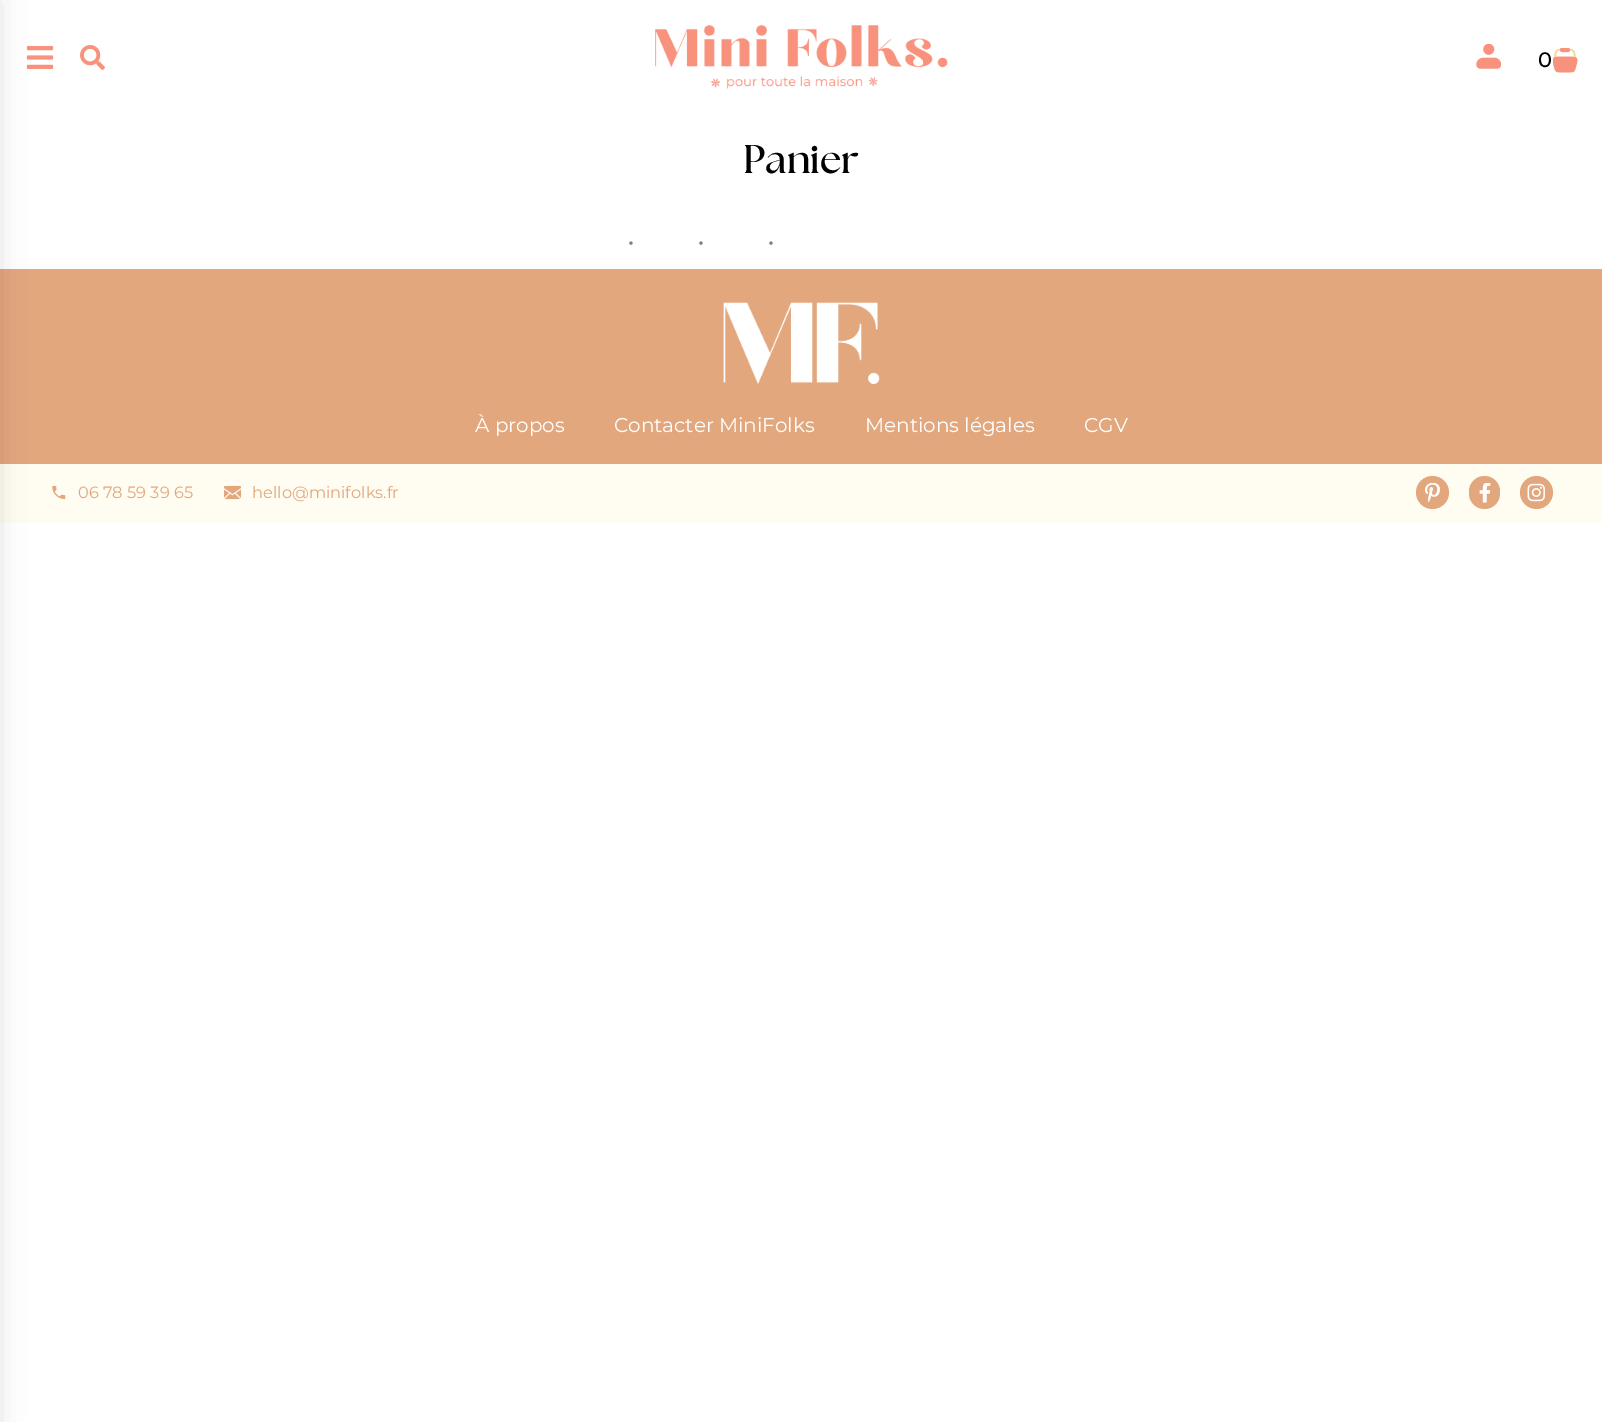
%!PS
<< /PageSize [1602 1422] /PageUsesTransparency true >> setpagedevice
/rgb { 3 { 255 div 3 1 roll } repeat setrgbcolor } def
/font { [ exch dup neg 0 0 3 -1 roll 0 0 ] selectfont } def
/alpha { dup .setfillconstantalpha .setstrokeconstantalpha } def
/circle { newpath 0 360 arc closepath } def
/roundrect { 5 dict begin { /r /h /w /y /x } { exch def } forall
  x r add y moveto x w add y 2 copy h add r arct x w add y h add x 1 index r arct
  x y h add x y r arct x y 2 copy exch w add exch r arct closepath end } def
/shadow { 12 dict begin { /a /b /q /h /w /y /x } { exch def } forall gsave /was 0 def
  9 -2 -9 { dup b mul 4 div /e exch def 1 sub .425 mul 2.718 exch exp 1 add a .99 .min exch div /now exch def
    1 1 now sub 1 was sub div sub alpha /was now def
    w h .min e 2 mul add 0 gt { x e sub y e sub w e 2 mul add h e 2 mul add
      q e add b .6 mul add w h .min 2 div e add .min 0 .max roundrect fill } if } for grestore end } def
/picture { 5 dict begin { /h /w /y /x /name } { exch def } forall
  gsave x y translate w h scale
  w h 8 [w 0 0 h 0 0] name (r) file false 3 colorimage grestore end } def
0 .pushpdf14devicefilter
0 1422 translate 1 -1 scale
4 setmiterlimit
255 255 255 rgb
0 0 1602 1422 rectfill
(img/1.rgb) 26 46 28 23 picture
227 167 126 rgb
0 269 1602 195 rectfill
255 253 242 rgb
0 464 1602 59 rectfill
0 0 0 rgb
-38 1 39 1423 0 12.5 0.11 shadow
(img/2.rgb) 80 45 25 25 picture
(img/3.rgb) 655 25 293 64 picture
(img/4.rgb) 1476 44 25 25 picture
(img/5.rgb) 1553 48 25 25 picture
(img/6.rgb) 723 302 157 83 picture
(img/7.rgb) 52 485 14 14 picture
(img/8.rgb) 224 485 17 15 picture
227 167 126 rgb
1432.5 492.5 16.5 circle fill
(img/9.rgb) 1425 483 15 20 picture
1469 476 31 33 15.5 roundrect fill
(img/10.rgb) 1479 483 12 20 picture
1536.5 492.5 16.5 circle fill
(img/11.rgb) 1527 483 18 19 picture
/Montserrat-Medium 21 font
0 0 0 rgb
1538 67 moveto (0) show
/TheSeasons-Bold 40 font
743 173 moveto (Panier) show
/LiberationSerif-Regular 30 font
128 128 128 rgb
626 253 moveto 60 0 (···) ashow
/Montserrat-Regular 20 font
255 255 255 rgb
[
  [(À propos) 475 432]
  [(Contacter MiniFolks) 614 432]
  [(Mentions légales) 865 432]
  [(CGV) 1084 432]
] { aload pop moveto show } forall
/Montserrat-Regular 16.25 font
227 167 126 rgb
78 498 moveto (06 78 59 39 65) show
252 498 moveto (hello@minifolks.fr) show
.poppdf14devicefilter showpage
